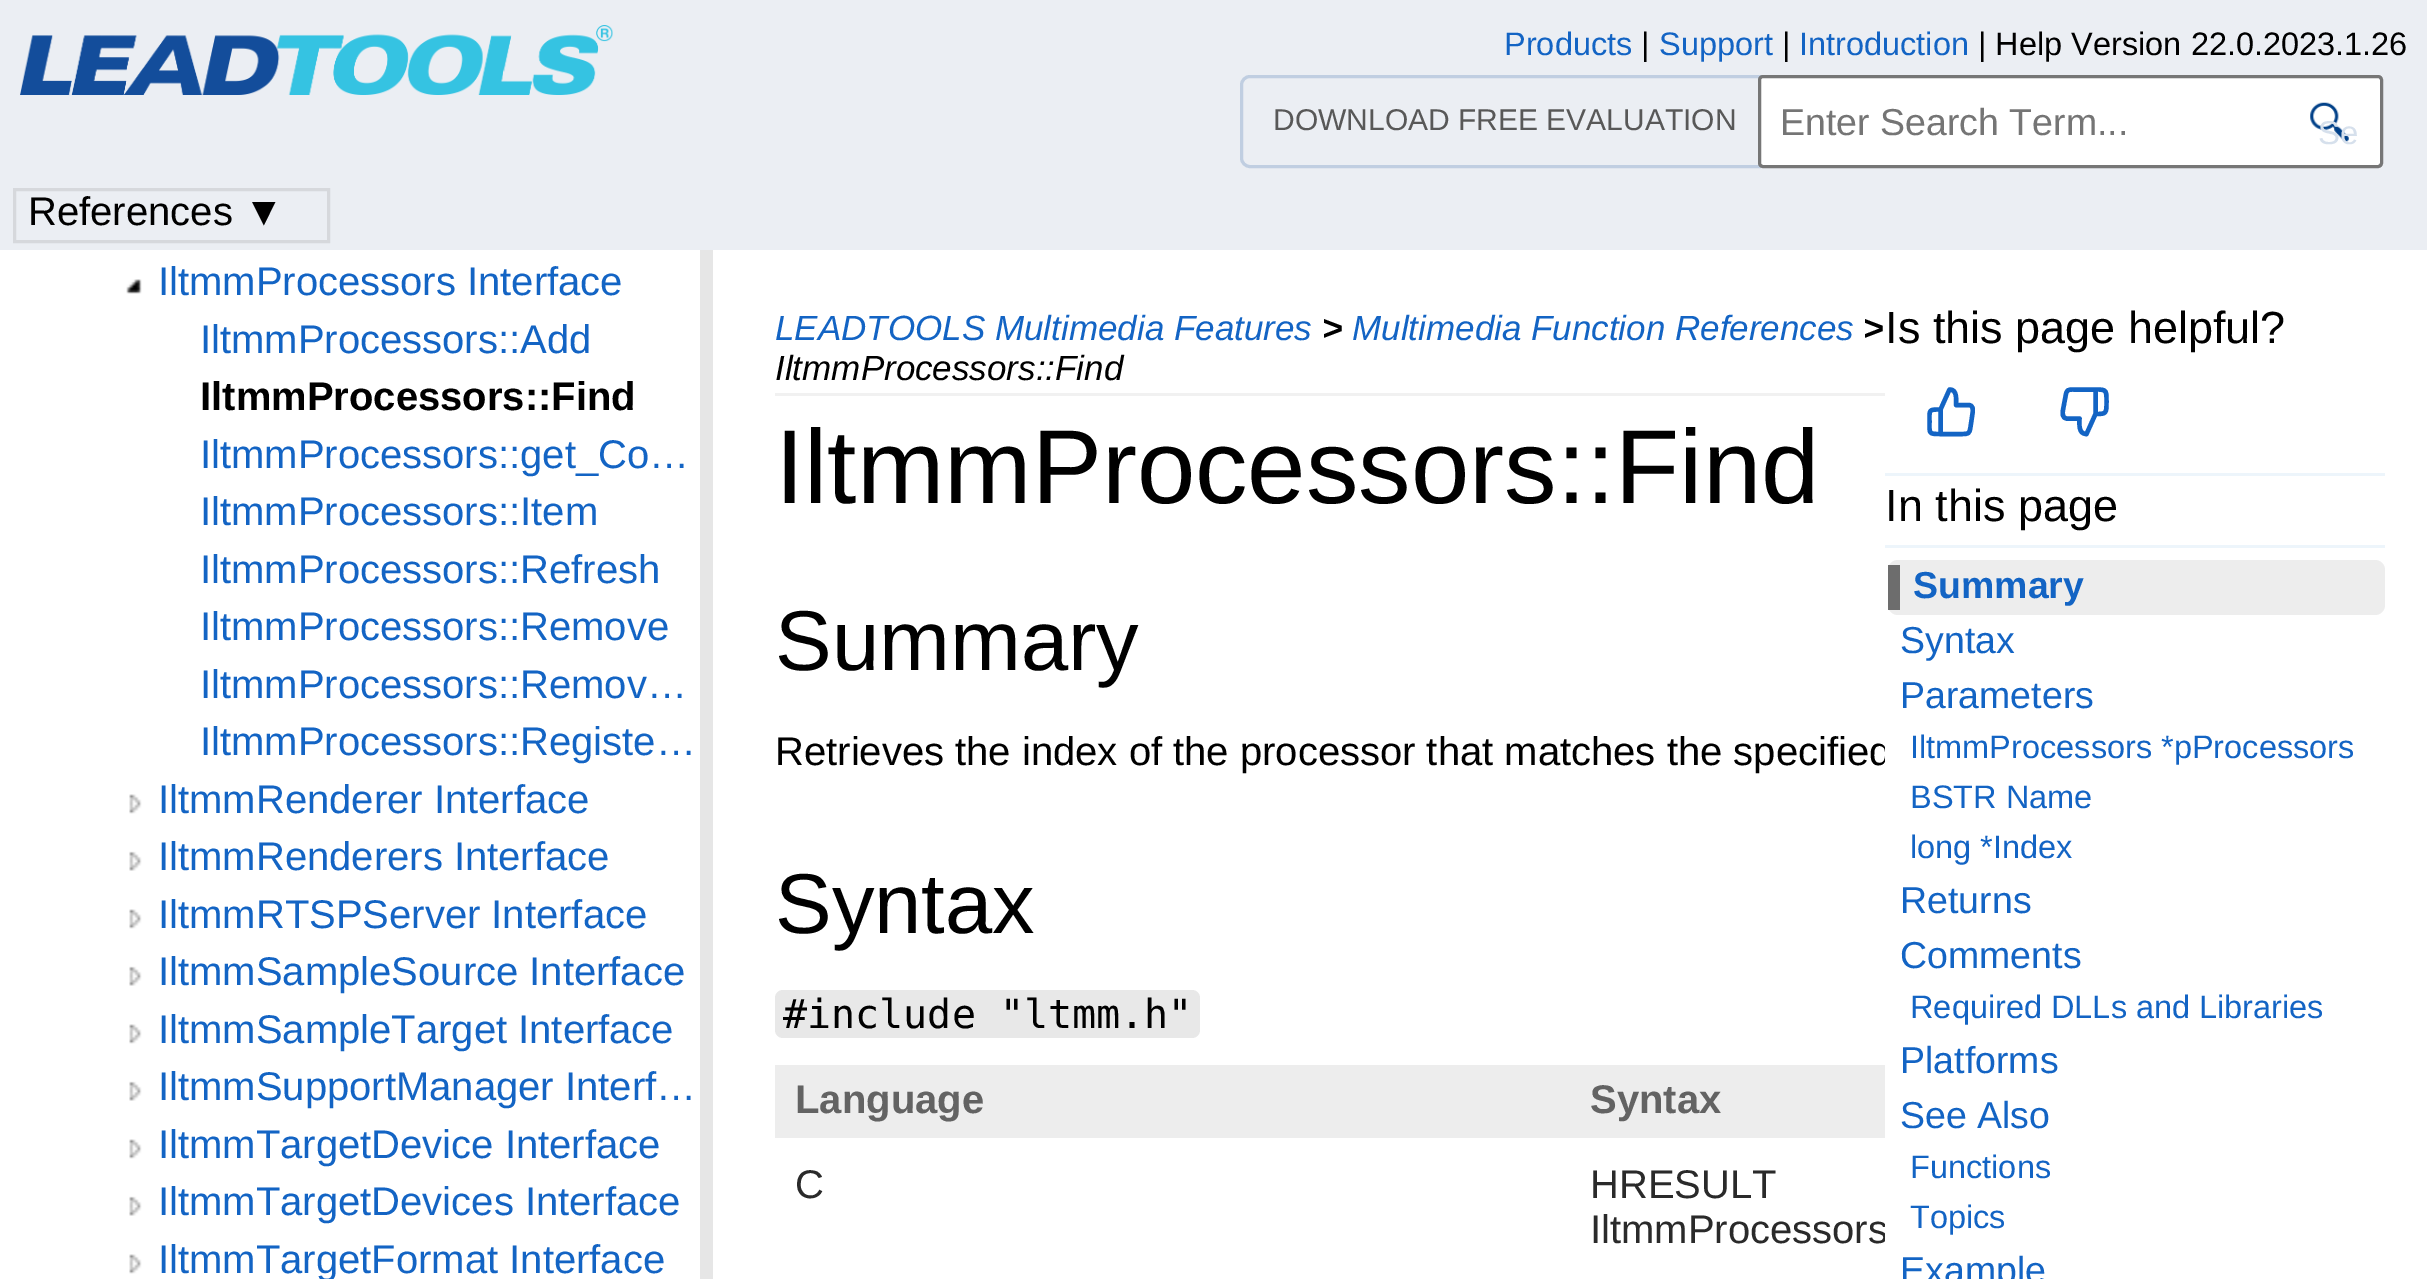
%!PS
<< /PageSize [2427 1279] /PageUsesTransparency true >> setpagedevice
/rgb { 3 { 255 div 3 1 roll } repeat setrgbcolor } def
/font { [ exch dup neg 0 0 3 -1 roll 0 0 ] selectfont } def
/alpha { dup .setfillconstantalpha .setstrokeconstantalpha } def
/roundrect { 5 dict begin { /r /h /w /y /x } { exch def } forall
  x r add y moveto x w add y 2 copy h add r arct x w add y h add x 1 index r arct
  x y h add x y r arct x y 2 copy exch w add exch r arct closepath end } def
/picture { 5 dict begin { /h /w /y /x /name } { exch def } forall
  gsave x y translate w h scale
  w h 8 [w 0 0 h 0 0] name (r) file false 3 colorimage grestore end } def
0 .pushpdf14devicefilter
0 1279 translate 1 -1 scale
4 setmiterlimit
255 255 255 rgb
0 0 2427 1279 rectfill
235 238 243 rgb
0 0 2427 250 rectfill
(img/1.rgb) 20 25 593 70 picture
192 206 225 rgb
3 setlinewidth
1241.5 76.5 527 90 8.5 roundrect stroke
255 255 255 rgb
1759.5 76.5 622 90 3.5 roundrect gsave fill grestore
118 118 118 rgb
stroke
(img/2.rgb) 2310 102 39 40 picture
214 216 220 rgb
14.5 189.5 314 52 rectstroke
230 230 230 rgb
700 250 13 1029 rectfill
(img/3.rgb) 126 279 16 15 picture
(img/4.rgb) 129 794 13 20 picture
(img/5.rgb) 129 851 13 20 picture
(img/4.rgb) 129 909 13 20 picture
(img/5.rgb) 129 966 13 20 picture
(img/4.rgb) 129 1024 13 20 picture
(img/5.rgb) 129 1081 13 20 picture
(img/4.rgb) 129 1139 13 20 picture
(img/5.rgb) 129 1196 13 20 picture
(img/4.rgb) 129 1254 13 20 picture
241 241 241 rgb
775 393 1110 3 rectfill
19 100 196 rgb
4.4 setlinewidth
1 setlinecap
1 setlinejoin
1956 405 moveto 1956 399.5 1957.5 389.5 1949.5 389.5 curveto 1940.5 409.5 lineto 1940.5 434 lineto 1961.5 434 lineto 1968.5 434 1969.5 434 1970.5 427 curveto 1972.5 413.5 lineto 1973 410 1973.5 405 1968.5 405 curveto closepath 1940.5 434 moveto 1928.5 434 1929.5 434 1929.5 421.5 curveto 1929.5 409.5 1928.5 409.5 1940.5 409.5 curveto stroke
2079.5 418.5 moveto 2079.5 423.5 2078 434 2086.5 434 curveto 2095.5 414 lineto 2095.5 389.5 lineto 2074.5 389.5 lineto 2067.5 389.5 2066.5 389.5 2065.5 396.5 curveto 2063 410 lineto 2062.5 413 2062 418.5 2067 418.5 curveto closepath 2095.5 389.5 moveto 2106.5 389.5 2106.5 390 2106.5 401.5 curveto 2106.5 413.5 2106.5 414 2095.5 414 curveto stroke
237 245 251 rgb
1885 473 500 3 rectfill
1885 545 500 3 rectfill
237 237 237 rgb
1888 560 497 55 10 roundrect fill
0.8 alpha
77 77 77 rgb
1888 565 12 45 rectfill
1 alpha
232 232 232 rgb
775 990 425 48 8 roundrect fill
237 237 237 rgb
775 1065 1110 73 rectfill
/LiberationSans-Regular 32.5 font
19 100 196 rgb
1504 55 moveto (Products) show
0 0 0 rgb
1641 55 moveto (|) show
19 100 196 rgb
1659 55 moveto (Support) show
0 0 0 rgb
1782 55 moveto (|) show
19 100 196 rgb
1799 55 moveto (Introduction) show
0 0 0 rgb
1978 55 moveto (| Help Version 22.0.2023.1.26) show
/LiberationSans-Regular 30 font
88 88 88 rgb
1273 130 moveto (DOWNLOAD FREE EVALUATION) show
/LiberationSans-Regular 37.5 font
117 117 117 rgb
1780 135 moveto (Enter Search Term...) show
/LiberationSans-Regular 33 font
214 224 236 rgb
2318 144 moveto (Se) show
/LiberationSans-Regular 40 font
0 0 0 rgb
28 225 moveto (References ▼) show
19 100 196 rgb
158 295 moveto (IltmmProcessors Interface) show
200 353 moveto (IltmmProcessors::Add) show
/LiberationSans-Bold 40 font
0 0 0 rgb
200 410 moveto (IltmmProcessors::Find) show
/LiberationSans-Regular 40 font
19 100 196 rgb
[
  [(IltmmProcessors::get_Co…) 200 468]
  [(IltmmProcessors::Item) 200 525]
  [(IltmmProcessors::Refresh) 200 583]
  [(IltmmProcessors::Remove) 200 640]
  [(IltmmProcessors::Remov…) 200 698]
  [(IltmmProcessors::Registe…) 200 755]
  [(IltmmRenderer Interface) 158 813]
  [(IltmmRenderers Interface) 158 870]
  [(IltmmRTSPServer Interface) 158 928]
  [(IltmmSampleSource Interface) 158 985]
  [(IltmmSampleTarget Interface) 158 1043]
  [(IltmmSupportManager Interf…) 158 1100]
  [(IltmmTargetDevice Interface) 158 1158]
  [(IltmmTargetDevices Interface) 158 1215]
  [(IltmmTargetFormat Interface) 158 1273]
] { aload pop moveto show } forall
/LiberationSans-Italic 35 font
775 340 moveto (LEADTOOLS Multimedia Features) show
/LiberationSans-BoldItalic 35 font
0 0 0 rgb
1322 340 moveto (>) show
/LiberationSans-Italic 35 font
19 100 196 rgb
1352 340 moveto (Multimedia Function References) show
/LiberationSans-BoldItalic 35 font
0 0 0 rgb
1863 340 moveto (>) show
/LiberationSans-Italic 35 font
775 380 moveto (IltmmProcessors::Find) show
/LiberationSans-Regular 45 font
1885 343 moveto (Is this page helpful?) show
1885 521 moveto (In this page) show
/LiberationSans-Bold 37.5 font
19 100 196 rgb
1913 598 moveto (Summary) show
/LiberationSans-Regular 37.5 font
1900 653 moveto (Syntax) show
1900 708 moveto (Parameters) show
/LiberationSans-Regular 32.5 font
[
  [(IltmmProcessors *pProcessors) 1910 758]
  [(BSTR Name) 1910 808]
  [(long *Index) 1910 858]
] { aload pop moveto show } forall
/LiberationSans-Regular 37.5 font
1900 913 moveto (Returns) show
1900 968 moveto (Comments) show
/LiberationSans-Regular 32.5 font
1910 1018 moveto (Required DLLs and Libraries) show
/LiberationSans-Regular 37.5 font
1900 1073 moveto (Platforms) show
1900 1128 moveto (See Also) show
/LiberationSans-Regular 32.5 font
1910 1178 moveto (Functions) show
1910 1228 moveto (Topics) show
/LiberationSans-Regular 37.5 font
1900 1283 moveto (Example) show
/LiberationSans-Regular 105 font
0 0 0 rgb
775 503 moveto (IltmmProcessors::Find) show
/LiberationSans-Regular 85 font
775 670 moveto (Summary) show
/LiberationSans-Regular 40 font
775 765 moveto (Retrieves the index of the processor that matches the specified) show
/LiberationSans-Regular 85 font
775 933 moveto (Syntax) show
/DejaVuSansMono-Regular 40 font
783 1028 moveto (#include "ltmm.h") show
/LiberationSans-Bold 40 font
99 99 99 rgb
795 1113 moveto (Language) show
1590 1113 moveto (Syntax) show
/LiberationSans-Regular 40 font
42 42 42 rgb
[
  [(C) 795 1198]
  [(HRESULT) 1590 1198]
  [(IltmmProcessors) 1590 1243]
] { aload pop moveto show } forall
255 255 255 rgb
1885 736 4 505 rectfill
.poppdf14devicefilter showpage
